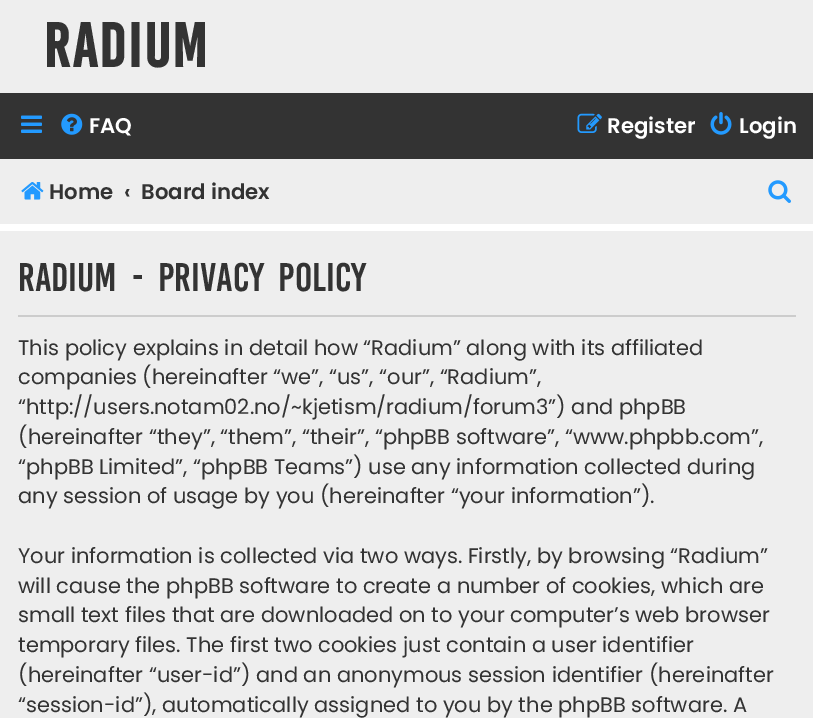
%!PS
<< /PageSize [813 718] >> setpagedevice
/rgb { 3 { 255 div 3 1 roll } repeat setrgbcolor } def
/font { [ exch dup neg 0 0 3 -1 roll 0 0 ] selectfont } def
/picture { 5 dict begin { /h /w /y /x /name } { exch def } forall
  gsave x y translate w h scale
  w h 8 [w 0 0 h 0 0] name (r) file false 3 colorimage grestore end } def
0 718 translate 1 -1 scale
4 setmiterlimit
255 255 255 rgb
0 0 813 718 rectfill
238 238 238 rgb
0 0 813 93 rectfill
51 51 51 rgb
0 93 813 66 rectfill
(img/1.rgb) 21 115 21 18 picture
(img/2.rgb) 61 113 22 22 picture
(img/3.rgb) 577 113 25 20 picture
(img/4.rgb) 710 112 22 23 picture
238 238 238 rgb
0 159 813 65 rectfill
(img/5.rgb) 21 182 23 18 picture
(img/6.rgb) 768 180 23 23 picture
0 231 813 487 rectfill
204 204 204 rgb
18 315 778 2 rectfill
/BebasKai-Bold 48 font
51 51 51 rgb
44 67 moveto 1.75 0 (Radium) ashow
/Poppins-SemiBold 21.25 font
255 255 255 rgb
[
  [(FAQ) 89 133]
  [(Register) 607 133]
  [(Login) 739 133]
] { aload pop moveto show } forall
51 51 51 rgb
[
  [(Home) 49 199]
  [(‹) 124 199]
  [(Board index) 141 199]
] { aload pop moveto show } forall
/BebasKai-Regular 30.75 font
18 291 moveto 7 0 32 (Radium - Privacy policy) widthshow
/Poppins-Regular 21 font
[
  [(This policy explains in detail how “Radium” along with its affiliated) 18 355]
  [(companies \(hereinafter “we”, “us”, “our”, “Radium”,) 18 384]
  [(“http://users.notam02.no/~kjetism/radium/forum3”\) and phpBB) 18 414]
  [(\(hereinafter “they”, “them”, “their”, “phpBB software”, “www.phpbb.com”,) 18 444]
  [(“phpBB Limited”, “phpBB Teams”\) use any information collected during) 18 474]
  [(any session of usage by you \(hereinafter “your information”\).) 18 503]
  [(Your information is collected via two ways. Firstly, by browsing “Radium”) 18 563]
  [(will cause the phpBB software to create a number of cookies, which are) 18 593]
  [(small text files that are downloaded on to your computer’s web browser) 18 622]
  [(temporary files. The first two cookies just contain a user identifier) 18 652]
  [(\(hereinafter “user-id”\) and an anonymous session identifier \(hereinafter) 18 682]
  [(“session-id”\), automatically assigned to you by the phpBB software. A) 18 712]
] { aload pop moveto show } forall
showpage
